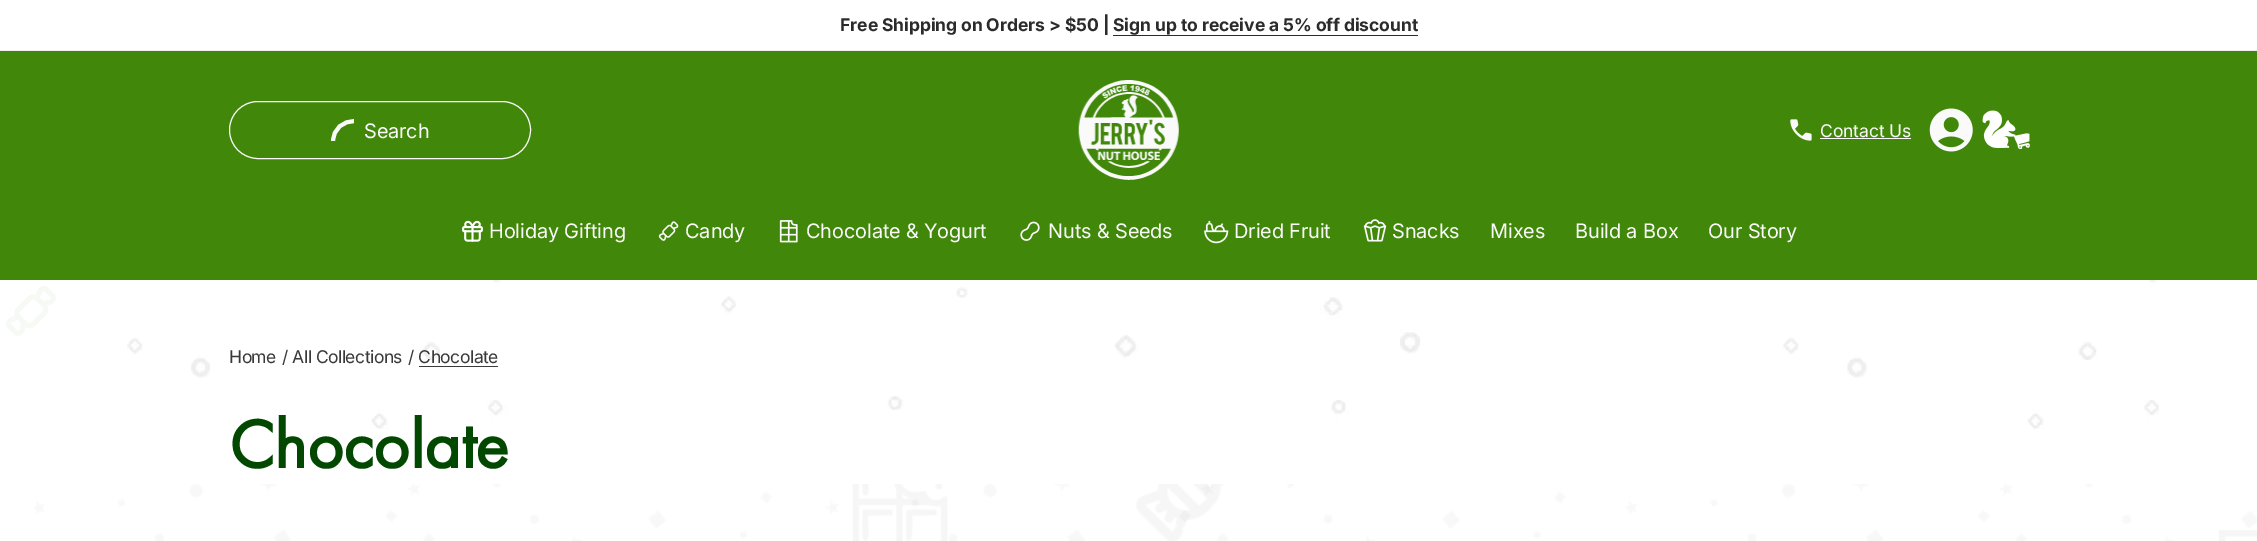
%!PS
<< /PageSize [2257 541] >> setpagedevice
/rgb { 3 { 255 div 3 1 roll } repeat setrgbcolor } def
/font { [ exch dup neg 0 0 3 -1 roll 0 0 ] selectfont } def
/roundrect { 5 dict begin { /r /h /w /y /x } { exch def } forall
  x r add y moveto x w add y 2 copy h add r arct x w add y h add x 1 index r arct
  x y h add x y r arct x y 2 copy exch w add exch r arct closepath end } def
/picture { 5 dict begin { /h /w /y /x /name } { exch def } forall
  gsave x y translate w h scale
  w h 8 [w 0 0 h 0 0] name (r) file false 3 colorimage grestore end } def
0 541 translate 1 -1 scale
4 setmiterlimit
255 255 255 rgb
0 0 2257 541 rectfill
[
  [0 50 2257 1 238 238 238]
  [1113 35 305 1 43 43 43]
  [0 51 2257 229 65 136 10]
] { aload pop rgb rectfill } forall
250 250 250 rgb
229.5 101.5 301 57 28.5 roundrect stroke
gsave
331 119 23 22 rectclip
4 setlinewidth
1 setlinecap
1 setlinejoin
376 142 moveto 376 170.5 333 170.5 333 142 curveto 333 114 376 114 376 142 curveto closepath stroke
grestore
(img/1.rgb) 1078 80 101 100 picture
(img/2.rgb) 1790 119 22 22 picture
1820 138 91 1 rectfill
(img/3.rgb) 1929 108 44 44 picture
(img/4.rgb) 1982 110 48 39 picture
(img/5.rgb) 462 220 21 22 picture
(img/6.rgb) 658 221 21 20 picture
(img/7.rgb) 779 220 19 23 picture
(img/8.rgb) 1020 221 20 20 picture
(img/9.rgb) 1204 220 25 24 picture
(img/10.rgb) 1363 219 24 23 picture
(img/11.rgb) 127 280 2032 149 picture
58 58 58 rgb
419 366 79 1 rectfill
(img/12.rgb) 6 286 50 50 picture
(img/13.rgb) 34 484 2223 57 picture
/Inter-Bold 17.5 font
43 43 43 rgb
840 31 moveto -0.1 0 (Free Shipping on Orders > $50 | Sign up to receive a 5% off discount) ashow
/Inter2-Regular 20 font
250 250 250 rgb
364 138 moveto -0.1 0 (Search) ashow
/Inter-Regular 17.5 font
1820 137 moveto -0.1 0 (Contact Us) ashow
/Inter2-Regular 20 font
489 238 moveto -0.1 0 (Holiday Gifting) ashow
685 238 moveto -0.1 0 (Candy) ashow
806 238 moveto -0.1 0 (Chocolate & Yogurt) ashow
1048 238 moveto -0.1 0 (Nuts & Seeds) ashow
1234 238 moveto -0.1 0 (Dried Fruit) ashow
1392 238 moveto -0.1 0 (Snacks) ashow
1490 238 moveto -0.1 0 (Mixes) ashow
1575 238 moveto -0.1 0 (Build a Box) ashow
1708 238 moveto -0.1 0 (Our Story) ashow
/Inter-Regular 17.5 font
58 58 58 rgb
229 363 moveto -0.5 0 (Home) ashow
282 363 moveto -0.5 0 (/ All Collections) ashow
408 363 moveto -0.5 0 (/ Chocolate) ashow
/FuturaPT-Bold 70 font
2 72 0 rgb
229 468 moveto -0.25 0 (Chocolate) ashow
showpage
